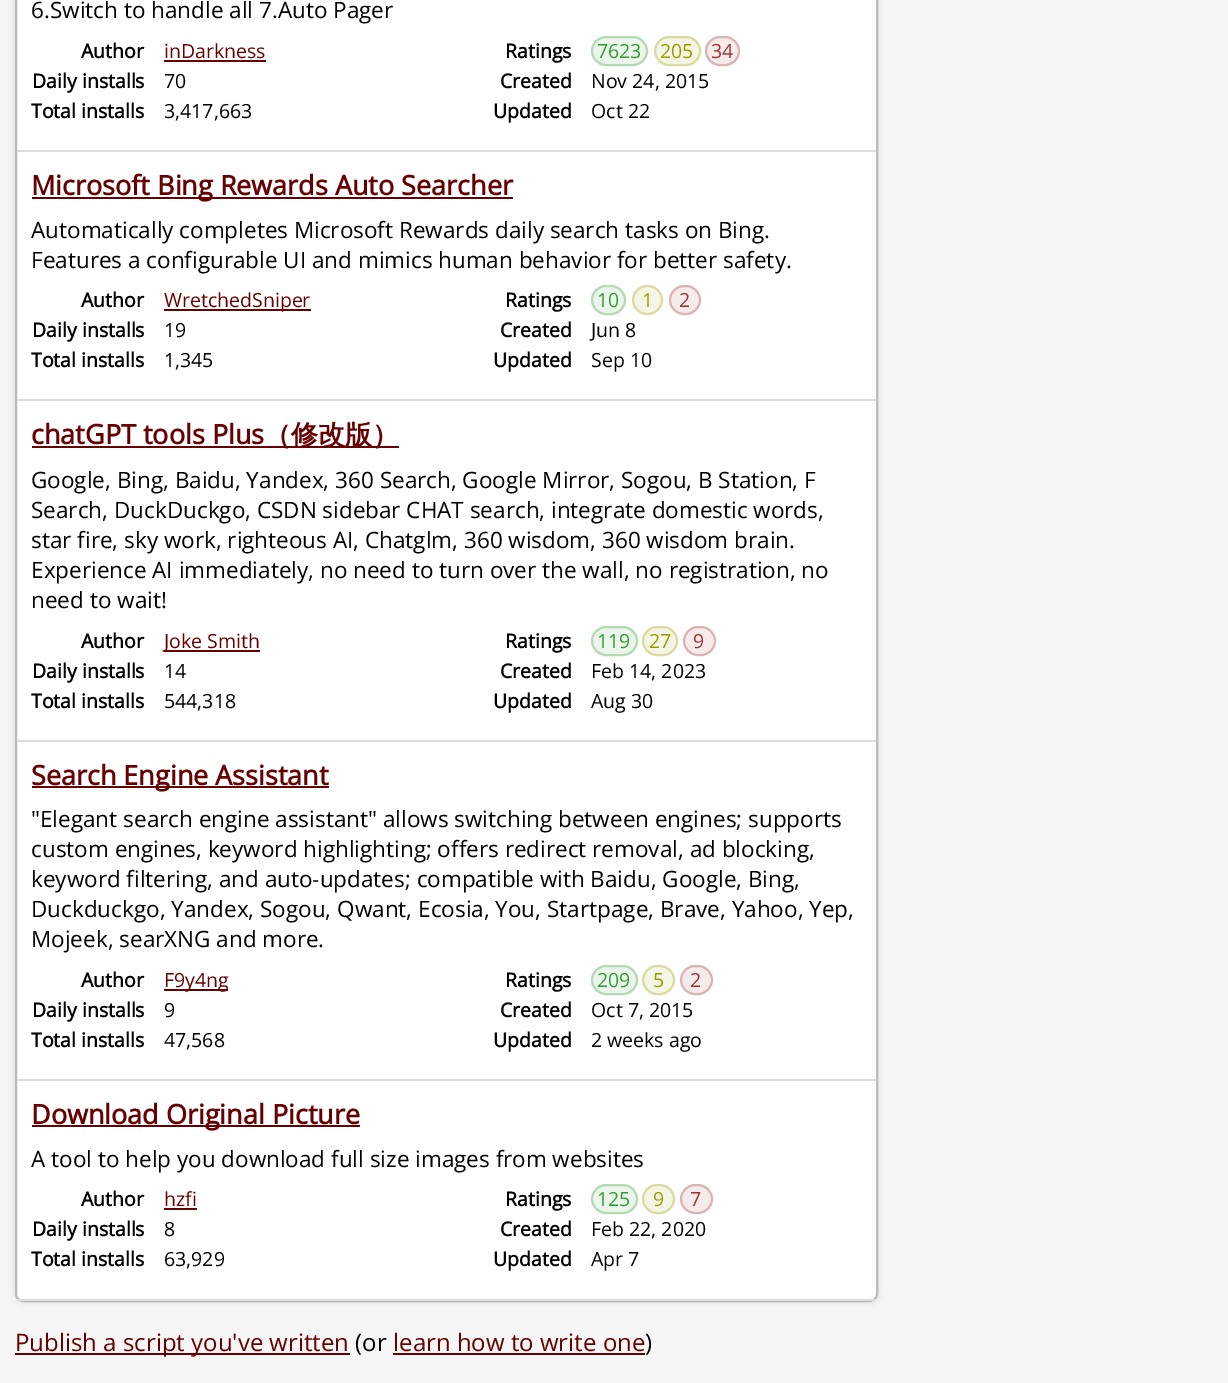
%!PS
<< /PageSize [1228 1383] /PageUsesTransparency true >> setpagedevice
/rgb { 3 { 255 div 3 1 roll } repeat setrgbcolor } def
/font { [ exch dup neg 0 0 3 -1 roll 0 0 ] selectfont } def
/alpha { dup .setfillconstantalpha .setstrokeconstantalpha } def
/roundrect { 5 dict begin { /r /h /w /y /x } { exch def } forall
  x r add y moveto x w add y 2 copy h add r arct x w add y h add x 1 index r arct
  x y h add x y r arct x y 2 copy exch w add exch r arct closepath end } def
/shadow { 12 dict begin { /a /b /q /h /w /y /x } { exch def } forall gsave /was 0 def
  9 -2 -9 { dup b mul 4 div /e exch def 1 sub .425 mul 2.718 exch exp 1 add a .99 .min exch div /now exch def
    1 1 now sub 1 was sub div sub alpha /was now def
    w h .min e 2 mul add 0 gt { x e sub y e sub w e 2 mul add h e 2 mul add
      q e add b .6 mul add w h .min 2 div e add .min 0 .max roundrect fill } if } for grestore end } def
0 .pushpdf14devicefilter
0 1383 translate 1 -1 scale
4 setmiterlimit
246 246 246 rgb
0 0 1228 1383 rectfill
221 221 221 rgb
15 -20 863 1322 8 4 1 shadow
255 255 255 rgb
16 -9 861 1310 7 roundrect gsave fill grestore
187 187 187 rgb
2 setlinewidth
stroke
221 221 221 rgb
17 150 859 2 rectfill
103 0 0 rgb
164 60 102 2 rectfill
235 245 235 rgb
591 36 57 30 15 roundrect fill
0.3 alpha
51 155 51 rgb
592 37 55 28 14 roundrect stroke
1 alpha
245 245 230 rgb
654 36 47 30 15 roundrect fill
0.3 alpha
155 155 0 rgb
655 37 45 28 14 roundrect stroke
1 alpha
245 235 235 rgb
705 36 35 30 15 roundrect fill
0.3 alpha
155 51 51 rgb
706 37 33 28 14 roundrect stroke
1 alpha
[
  [17 399 859 2 221 221 221]
  [32 197 481 2 103 0 0]
  [164 309 147 2 103 0 0]
] { aload pop rgb rectfill } forall
235 245 235 rgb
591 285 35 30 15 roundrect fill
0.3 alpha
51 155 51 rgb
592 286 33 28 14 roundrect stroke
1 alpha
245 245 230 rgb
632 285 31 30 15 roundrect fill
0.3 alpha
155 155 0 rgb
633 286 29 28 14 roundrect stroke
1 alpha
245 235 235 rgb
669 285 32 30 15 roundrect fill
0.3 alpha
155 51 51 rgb
670 286 30 28 14 roundrect stroke
1 alpha
[
  [17 740 859 2 221 221 221]
  [32 446 367 2 103 0 0]
  [164 650 96 2 103 0 0]
] { aload pop rgb rectfill } forall
235 245 235 rgb
591 626 47 30 15 roundrect fill
0.3 alpha
51 155 51 rgb
592 627 45 28 14 roundrect stroke
1 alpha
245 245 230 rgb
642 626 36 30 15 roundrect fill
0.3 alpha
155 155 0 rgb
643 627 34 28 14 roundrect stroke
1 alpha
245 235 235 rgb
683 626 33 30 15 roundrect fill
0.3 alpha
155 51 51 rgb
684 627 31 28 14 roundrect stroke
1 alpha
[
  [17 1079 859 2 221 221 221]
  [32 786 297 2 103 0 0]
  [164 989 64 2 103 0 0]
] { aload pop rgb rectfill } forall
235 245 235 rgb
591 965 47 30 15 roundrect fill
0.3 alpha
51 155 51 rgb
592 966 45 28 14 roundrect stroke
1 alpha
245 245 230 rgb
642 965 33 30 15 roundrect fill
0.3 alpha
155 155 0 rgb
643 966 31 28 14 roundrect stroke
1 alpha
245 235 235 rgb
680 965 33 30 15 roundrect fill
0.3 alpha
155 51 51 rgb
681 966 31 28 14 roundrect stroke
1 alpha
[
  [17 1299 859 2 221 221 221]
  [32 1125 328 2 103 0 0]
  [164 1208 33 2 103 0 0]
] { aload pop rgb rectfill } forall
235 245 235 rgb
591 1184 47 30 15 roundrect fill
0.3 alpha
51 155 51 rgb
592 1185 45 28 14 roundrect stroke
1 alpha
245 245 230 rgb
642 1184 33 30 15 roundrect fill
0.3 alpha
155 155 0 rgb
643 1185 31 28 14 roundrect stroke
1 alpha
245 235 235 rgb
680 1184 33 30 15 roundrect fill
0.3 alpha
155 51 51 rgb
681 1185 31 28 14 roundrect stroke
1 alpha
103 0 0 rgb
15 1353 335 2 rectfill
393 1353 252 2 rectfill
/OpenSans-Regular 22.5 font
0 0 0 rgb
31 18 moveto (6.Switch to handle all 7.Auto Pager) show
/OpenSans-Bold 19.5 font
81 58 moveto (Author) show
/OpenSans-Regular 19.5 font
103 0 0 rgb
164 58 moveto (inDarkness) show
/OpenSans-Bold 19.5 font
0 0 0 rgb
505 58 moveto (Ratings) show
/OpenSans-Regular 19.5 font
51 155 51 rgb
597 58 moveto (7623) show
155 155 0 rgb
660 58 moveto (205) show
155 51 51 rgb
711 58 moveto (34) show
/OpenSans-Bold 19.5 font
0 0 0 rgb
32 88 moveto (Daily installs) show
/OpenSans-Regular 19.5 font
164 88 moveto (70) show
/OpenSans-Bold 19.5 font
500 88 moveto (Created) show
/OpenSans-Regular 19.5 font
591 88 moveto (Nov 24, 2015) show
/OpenSans-Bold 19.5 font
31 118 moveto (Total installs) show
/OpenSans-Regular 19.5 font
164 118 moveto (3,417,663) show
/OpenSans-Bold 19.5 font
493 118 moveto (Updated) show
/OpenSans-Regular 19.5 font
591 118 moveto (Oct 22) show
/OpenSans-Bold 27 font
103 0 0 rgb
31 195 moveto (Microsoft Bing Rewards Auto Searcher) show
/OpenSans-Regular 22.5 font
0 0 0 rgb
31 238 moveto (Automatically completes Microsoft Rewards daily search tasks on Bing.) show
31 268 moveto (Features a configurable UI and mimics human behavior for better safety.) show
/OpenSans-Bold 19.5 font
81 307 moveto (Author) show
/OpenSans-Regular 19.5 font
103 0 0 rgb
164 307 moveto (WretchedSniper) show
/OpenSans-Bold 19.5 font
0 0 0 rgb
505 307 moveto (Ratings) show
/OpenSans-Regular 19.5 font
51 155 51 rgb
597 307 moveto (10) show
155 155 0 rgb
642 307 moveto (1) show
155 51 51 rgb
679 307 moveto (2) show
/OpenSans-Bold 19.5 font
0 0 0 rgb
32 337 moveto (Daily installs) show
/OpenSans-Regular 19.5 font
164 337 moveto (19) show
/OpenSans-Bold 19.5 font
500 337 moveto (Created) show
/OpenSans-Regular 19.5 font
591 337 moveto (Jun 8) show
/OpenSans-Bold 19.5 font
31 367 moveto (Total installs) show
/OpenSans-Regular 19.5 font
164 367 moveto (1,345) show
/OpenSans-Bold 19.5 font
493 367 moveto (Updated) show
/OpenSans-Regular 19.5 font
591 367 moveto (Sep 10) show
/OpenSans-Bold 27 font
103 0 0 rgb
31 444 moveto (chatGPT tools Plus) show
/WenQuanYiZenHei-Bold 27 font
264 444 moveto (（修改版）) show
/OpenSans-Regular 22.5 font
0 0 0 rgb
[
  [(Google, Bing, Baidu, Yandex, 360 Search, Google Mirror, Sogou, B Station, F) 31 488]
  [(Search, DuckDuckgo, CSDN sidebar CHAT search, integrate domestic words,) 31 518]
  [(star fire, sky work, righteous AI, Chatglm, 360 wisdom, 360 wisdom brain.) 31 548]
  [(Experience AI immediately, no need to turn over the wall, no registration, no) 31 578]
  [(need to wait!) 31 608]
] { aload pop moveto show } forall
/OpenSans-Bold 19.5 font
81 648 moveto (Author) show
/OpenSans-Regular 19.5 font
103 0 0 rgb
164 648 moveto (Joke Smith) show
/OpenSans-Bold 19.5 font
0 0 0 rgb
505 648 moveto (Ratings) show
/OpenSans-Regular 19.5 font
51 155 51 rgb
597 648 moveto (119) show
155 155 0 rgb
649 648 moveto (27) show
155 51 51 rgb
693 648 moveto (9) show
/OpenSans-Bold 19.5 font
0 0 0 rgb
32 678 moveto (Daily installs) show
/OpenSans-Regular 19.5 font
164 678 moveto (14) show
/OpenSans-Bold 19.5 font
500 678 moveto (Created) show
/OpenSans-Regular 19.5 font
591 678 moveto (Feb 14, 2023) show
/OpenSans-Bold 19.5 font
31 708 moveto (Total installs) show
/OpenSans-Regular 19.5 font
164 708 moveto (544,318) show
/OpenSans-Bold 19.5 font
493 708 moveto (Updated) show
/OpenSans-Regular 19.5 font
591 708 moveto (Aug 30) show
/OpenSans-Bold 27 font
103 0 0 rgb
31 785 moveto (Search Engine Assistant) show
/OpenSans-Regular 22.5 font
0 0 0 rgb
[
  [("Elegant search engine assistant" allows switching between engines; supports) 31 827]
  [(custom engines, keyword highlighting; offers redirect removal, ad blocking,) 31 857]
  [(keyword filtering, and auto-updates; compatible with Baidu, Google, Bing,) 31 887]
  [(Duckduckgo, Yandex, Sogou, Qwant, Ecosia, You, Startpage, Brave, Yahoo, Yep,) 31 917]
  [(Mojeek, searXNG and more.) 31 947]
] { aload pop moveto show } forall
/OpenSans-Bold 19.5 font
81 987 moveto (Author) show
/OpenSans-Regular 19.5 font
103 0 0 rgb
164 987 moveto (F9y4ng) show
/OpenSans-Bold 19.5 font
0 0 0 rgb
505 987 moveto (Ratings) show
/OpenSans-Regular 19.5 font
51 155 51 rgb
597 987 moveto (209) show
155 155 0 rgb
653 987 moveto (5) show
155 51 51 rgb
690 987 moveto (2) show
/OpenSans-Bold 19.5 font
0 0 0 rgb
32 1017 moveto (Daily installs) show
/OpenSans-Regular 19.5 font
164 1017 moveto (9) show
/OpenSans-Bold 19.5 font
500 1017 moveto (Created) show
/OpenSans-Regular 19.5 font
591 1017 moveto (Oct 7, 2015) show
/OpenSans-Bold 19.5 font
31 1047 moveto (Total installs) show
/OpenSans-Regular 19.5 font
164 1047 moveto (47,568) show
/OpenSans-Bold 19.5 font
493 1047 moveto (Updated) show
/OpenSans-Regular 19.5 font
591 1047 moveto (2 weeks ago) show
/OpenSans-Bold 27 font
103 0 0 rgb
31 1124 moveto (Download Original Picture) show
/OpenSans-Regular 22.5 font
0 0 0 rgb
31 1167 moveto (A tool to help you download full size images from websites) show
/OpenSans-Bold 19.5 font
81 1206 moveto (Author) show
/OpenSans-Regular 19.5 font
103 0 0 rgb
164 1206 moveto (hzfi) show
/OpenSans-Bold 19.5 font
0 0 0 rgb
505 1206 moveto (Ratings) show
/OpenSans-Regular 19.5 font
51 155 51 rgb
597 1206 moveto (125) show
155 155 0 rgb
653 1206 moveto (9) show
155 51 51 rgb
690 1206 moveto (7) show
/OpenSans-Bold 19.5 font
0 0 0 rgb
32 1236 moveto (Daily installs) show
/OpenSans-Regular 19.5 font
164 1236 moveto (8) show
/OpenSans-Bold 19.5 font
500 1236 moveto (Created) show
/OpenSans-Regular 19.5 font
591 1236 moveto (Feb 22, 2020) show
/OpenSans-Bold 19.5 font
31 1266 moveto (Total installs) show
/OpenSans-Regular 19.5 font
164 1266 moveto (63,929) show
/OpenSans-Bold 19.5 font
493 1266 moveto (Updated) show
/OpenSans-Regular 19.5 font
591 1266 moveto (Apr 7) show
/OpenSans-Regular 24 font
103 0 0 rgb
15 1351 moveto (Publish a script you've written) show
0 0 0 rgb
355 1351 moveto (\(or) show
103 0 0 rgb
393 1351 moveto (learn how to write one) show
0 0 0 rgb
645 1351 moveto (\)) show
.poppdf14devicefilter showpage
